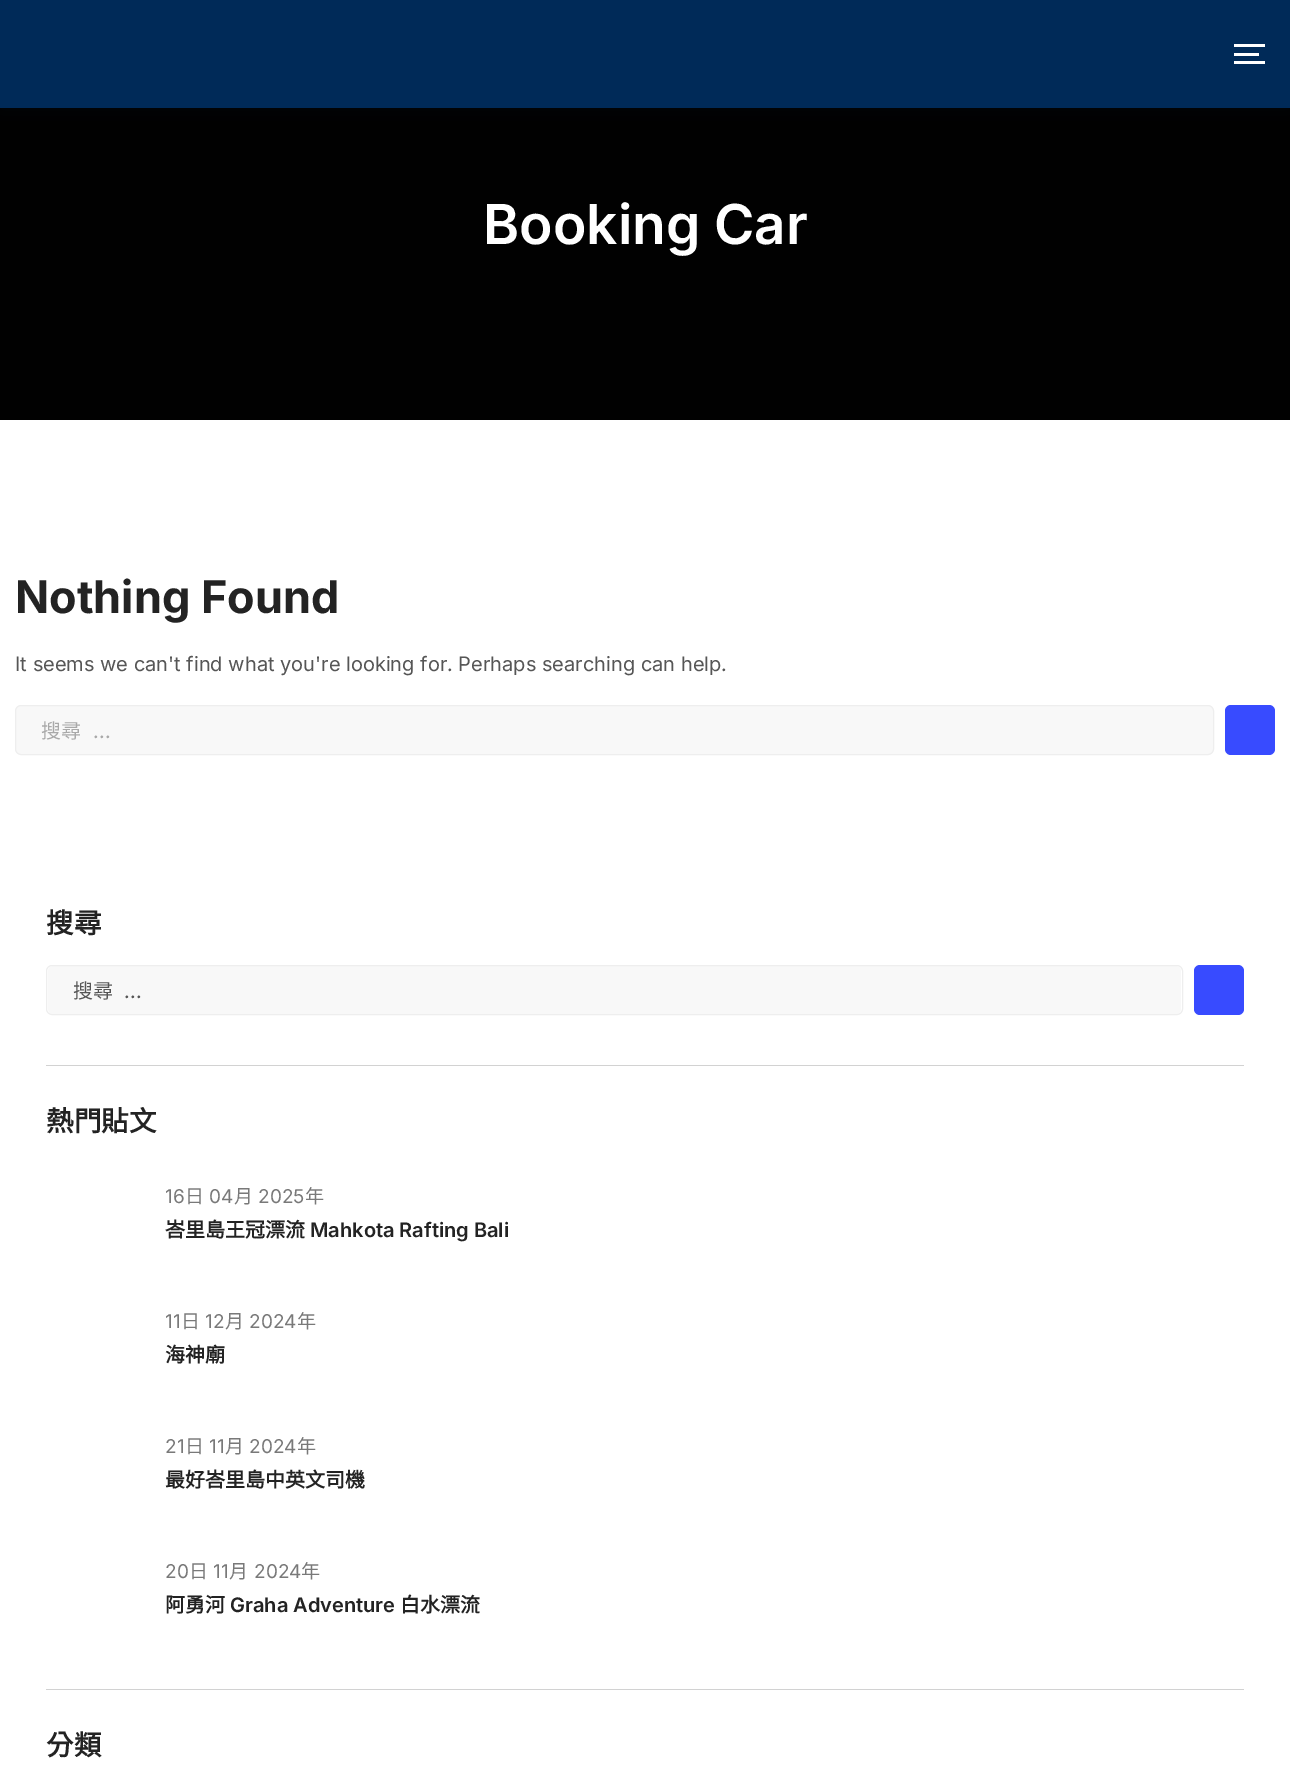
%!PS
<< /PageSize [1290 1765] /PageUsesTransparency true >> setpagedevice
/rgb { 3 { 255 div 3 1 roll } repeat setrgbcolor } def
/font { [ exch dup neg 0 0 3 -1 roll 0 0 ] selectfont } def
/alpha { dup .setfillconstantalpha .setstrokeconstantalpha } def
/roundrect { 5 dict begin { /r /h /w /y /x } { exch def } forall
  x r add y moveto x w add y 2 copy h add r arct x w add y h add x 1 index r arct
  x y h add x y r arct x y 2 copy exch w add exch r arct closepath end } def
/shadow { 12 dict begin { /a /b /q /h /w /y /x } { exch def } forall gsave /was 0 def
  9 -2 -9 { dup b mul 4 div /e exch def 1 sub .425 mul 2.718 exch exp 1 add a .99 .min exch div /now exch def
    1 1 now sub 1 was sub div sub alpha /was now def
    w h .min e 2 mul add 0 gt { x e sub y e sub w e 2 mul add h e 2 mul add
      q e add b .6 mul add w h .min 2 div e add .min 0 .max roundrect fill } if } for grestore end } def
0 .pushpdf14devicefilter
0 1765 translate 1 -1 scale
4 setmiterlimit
255 255 255 rgb
0 0 1290 1765 rectfill
1 1 1 rgb
0 108 1290 312 rectfill
0 35 90 rgb
0 0 1290 108 0 11 0.1 shadow
[
  [0 0 1290 108 0 42 88]
  [1234 44 31 3 255 255 255]
  [1234 53 25 3 255 255 255]
  [1234 61 31 3 255 255 255]
] { aload pop rgb rectfill } forall
248 248 248 rgb
15.5 705.5 1198 49 5.5 roundrect gsave fill grestore
238 238 238 rgb
stroke
56 75 255 rgb
1225 705 50 50 6 roundrect fill
210 210 210 rgb
46 1065 1198 1 rectfill
248 248 248 rgb
48 966 1133 48 5 roundrect fill
238 238 238 rgb
46.5 965.5 1136 49 5.5 roundrect stroke
56 75 255 rgb
1194 965 50 50 6 roundrect fill
210 210 210 rgb
46 1689 1198 1 rectfill
/Inter-SemiBold 55 font
255 255 255 rgb
483 244 moveto (Booking Car) show
/Inter-Bold 45 font
35 35 35 rgb
15 613 moveto (Nothing Found) show
/Inter-Regular 20 font
86 86 86 rgb
15 671 moveto (It seems we can't find what you're looking for. Perhaps searching can help.) show
/NotoSansCJKTC-Regular 20 font
169 169 169 rgb
41 738 moveto (搜尋) show
/Inter-Regular 20 font
93 738 moveto (...) show
/NotoSansCJKTC-Bold 27.5 font
35 35 35 rgb
46 933 moveto (搜尋) show
/NotoSansCJKTC-Regular 20 font
86 86 86 rgb
73 998 moveto (搜尋) show
/Inter-Regular 20 font
124 998 moveto (...) show
/NotoSansCJKTC-Bold 27.5 font
35 35 35 rgb
46 1131 moveto (熱門貼文) show
/Inter-Regular 19 font
121 121 121 rgb
165 1203 moveto (16) show
/NotoSansCJKTC-Regular 19 font
185 1203 moveto (日) show
/Inter-Regular 19 font
209 1203 moveto (04) show
/NotoSansCJKTC-Regular 19 font
234 1203 moveto (月) show
/Inter-Regular 19 font
258 1203 moveto (2025) show
/NotoSansCJKTC-Regular 19 font
305 1203 moveto (年) show
/NotoSansCJKTC-Bold 20 font
35 35 35 rgb
165 1237 moveto (峇里島王冠漂流) show
/Inter-SemiBold 20 font
310 1237 moveto (Mahkota Rafting Bali) show
/Inter-Regular 19 font
121 121 121 rgb
165 1328 moveto (11) show
/NotoSansCJKTC-Regular 19 font
181 1328 moveto (日) show
/Inter-Regular 19 font
205 1328 moveto (12) show
/NotoSansCJKTC-Regular 19 font
225 1328 moveto (月) show
/Inter-Regular 19 font
249 1328 moveto (2024) show
/NotoSansCJKTC-Regular 19 font
297 1328 moveto (年) show
/NotoSansCJKTC-Bold 20 font
35 35 35 rgb
165 1362 moveto (海神廟) show
/Inter-Regular 19 font
121 121 121 rgb
165 1453 moveto (21) show
/NotoSansCJKTC-Regular 19 font
185 1453 moveto (日) show
/Inter-Regular 19 font
209 1453 moveto (11) show
/NotoSansCJKTC-Regular 19 font
225 1453 moveto (月) show
/Inter-Regular 19 font
249 1453 moveto (2024) show
/NotoSansCJKTC-Regular 19 font
297 1453 moveto (年) show
/NotoSansCJKTC-Bold 20 font
35 35 35 rgb
165 1487 moveto (最好峇里島中英文司機) show
/Inter-Regular 19 font
121 121 121 rgb
165 1578 moveto (20) show
/NotoSansCJKTC-Regular 19 font
189 1578 moveto (日) show
/Inter-Regular 19 font
213 1578 moveto (11) show
/NotoSansCJKTC-Regular 19 font
229 1578 moveto (月) show
/Inter-Regular 19 font
254 1578 moveto (2024) show
/NotoSansCJKTC-Regular 19 font
301 1578 moveto (年) show
/NotoSansCJKTC-Bold 20 font
35 35 35 rgb
165 1612 moveto (阿勇河) show
/Inter-SemiBold 20 font
230 1612 moveto (Graha Adventure) show
/NotoSansCJKTC-Bold 20 font
400 1612 moveto (白水漂流) show
/NotoSansCJKTC-Bold 27.5 font
46 1755 moveto (分類) show
.poppdf14devicefilter showpage
